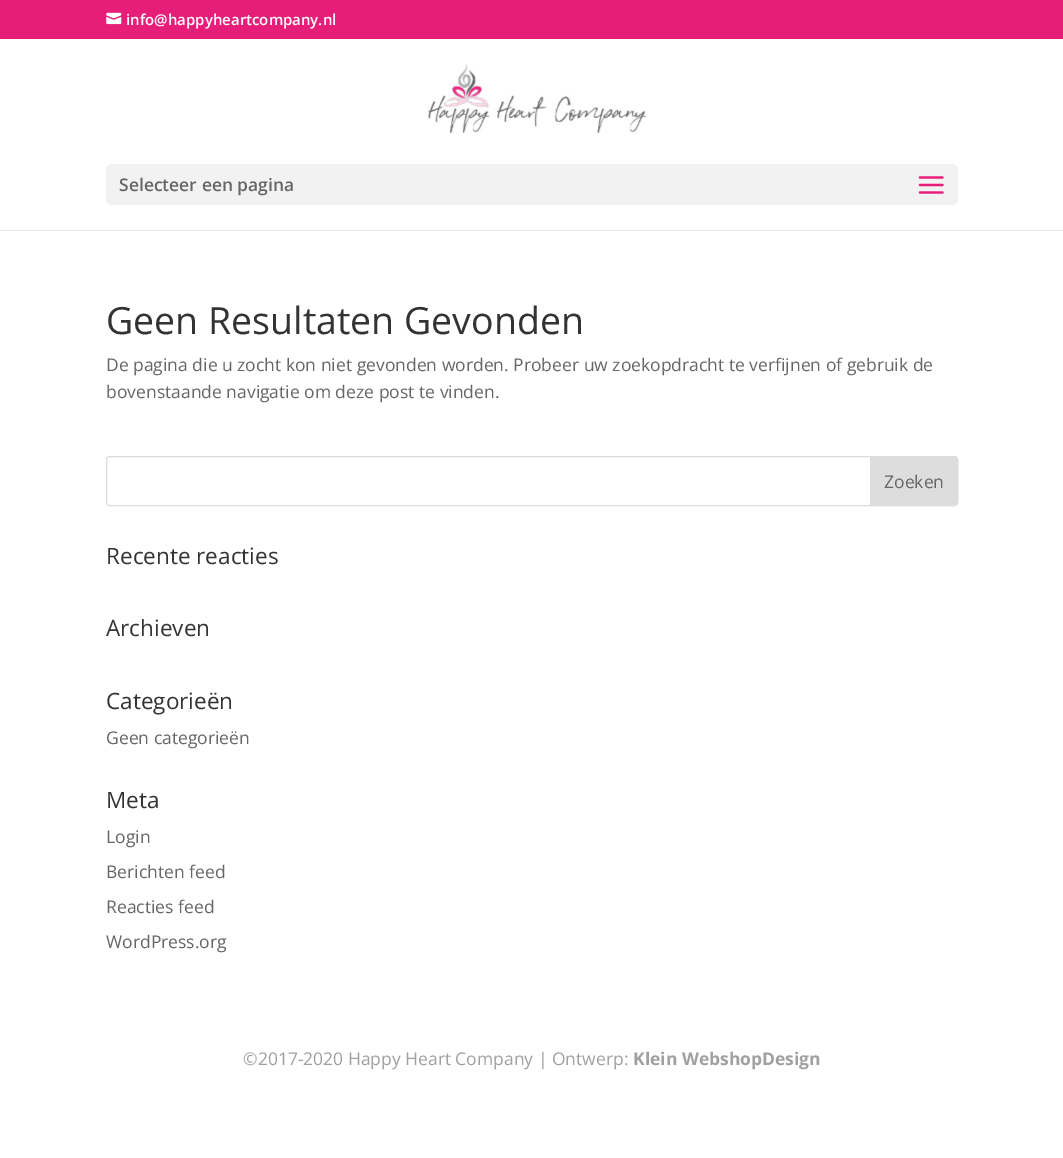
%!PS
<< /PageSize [1063 1158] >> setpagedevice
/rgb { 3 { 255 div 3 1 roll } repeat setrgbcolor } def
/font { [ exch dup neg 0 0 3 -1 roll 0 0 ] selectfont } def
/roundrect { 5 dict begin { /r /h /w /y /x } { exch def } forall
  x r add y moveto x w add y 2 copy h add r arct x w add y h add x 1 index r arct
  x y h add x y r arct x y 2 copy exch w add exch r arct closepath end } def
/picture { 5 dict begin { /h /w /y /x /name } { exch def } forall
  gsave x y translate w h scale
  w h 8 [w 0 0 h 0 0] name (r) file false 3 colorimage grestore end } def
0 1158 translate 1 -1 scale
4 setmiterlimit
255 255 255 rgb
0 0 1063 1158 rectfill
230 29 121 rgb
0 0 1063 39 rectfill
(img/1.rgb) 106 12 16 13 picture
230 230 230 rgb
0 230 moveto 0 231 lineto 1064 231 lineto 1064 40 lineto 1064 230 lineto closepath fill
(img/2.rgb) 428 64 219 69 picture
242 242 242 rgb
106 164 852 41 6 roundrect fill
(img/3.rgb) 918 176 26 18 picture
221 221 221 rgb
106.5 456.5 851 49 3.5 roundrect stroke
870.5 456.5 moveto 954 456.5 lineto 956 456.5 957.5 458 957.5 460 curveto 957.5 502 lineto 957.5 504 956 505.5 954 505.5 curveto 870.5 505.5 lineto closepath gsave fill grestore
stroke
/OpenSans-SemiBold 15 font
255 255 255 rgb
126 25 moveto (info@happyheartcompany.nl) show
/OpenSans-SemiBold 17.5 font
102 102 102 rgb
119 191 moveto (Selecteer een pagina) show
/OpenSans-Regular 37.5 font
51 51 51 rgb
106 334 moveto (Geen Resultaten Gevonden) show
/OpenSans-Regular 17.5 font
102 102 102 rgb
[
  [(De pagina die u zocht kon niet gevonden worden. Probeer uw zoekopdracht te verfijnen of gebruik de) 106 371]
  [(bovenstaande navigatie om deze post te vinden.) 106 398]
  [(Zoeken) 884 488]
] { aload pop moveto show } forall
/OpenSans-Regular 22.5 font
51 51 51 rgb
[
  [(Recente reacties) 106 564]
  [(Archieven) 106 636]
  [(Categorieën) 106 709]
] { aload pop moveto show } forall
/OpenSans-Regular 17.5 font
102 102 102 rgb
106 744 moveto (Geen categorieën) show
/OpenSans-Regular 22.5 font
51 51 51 rgb
106 808 moveto (Meta) show
/OpenSans-Regular 17.5 font
102 102 102 rgb
[
  [(Login) 106 843]
  [(Berichten feed) 106 878]
  [(Reacties feed) 106 913]
  [(WordPress.org) 106 948]
] { aload pop moveto show } forall
160 160 160 rgb
243 1065 moveto (©2017-2020 Happy Heart Company | Ontwerp:) show
/OpenSans-Bold 17.5 font
633 1065 moveto (Klein WebshopDesign) show
showpage
